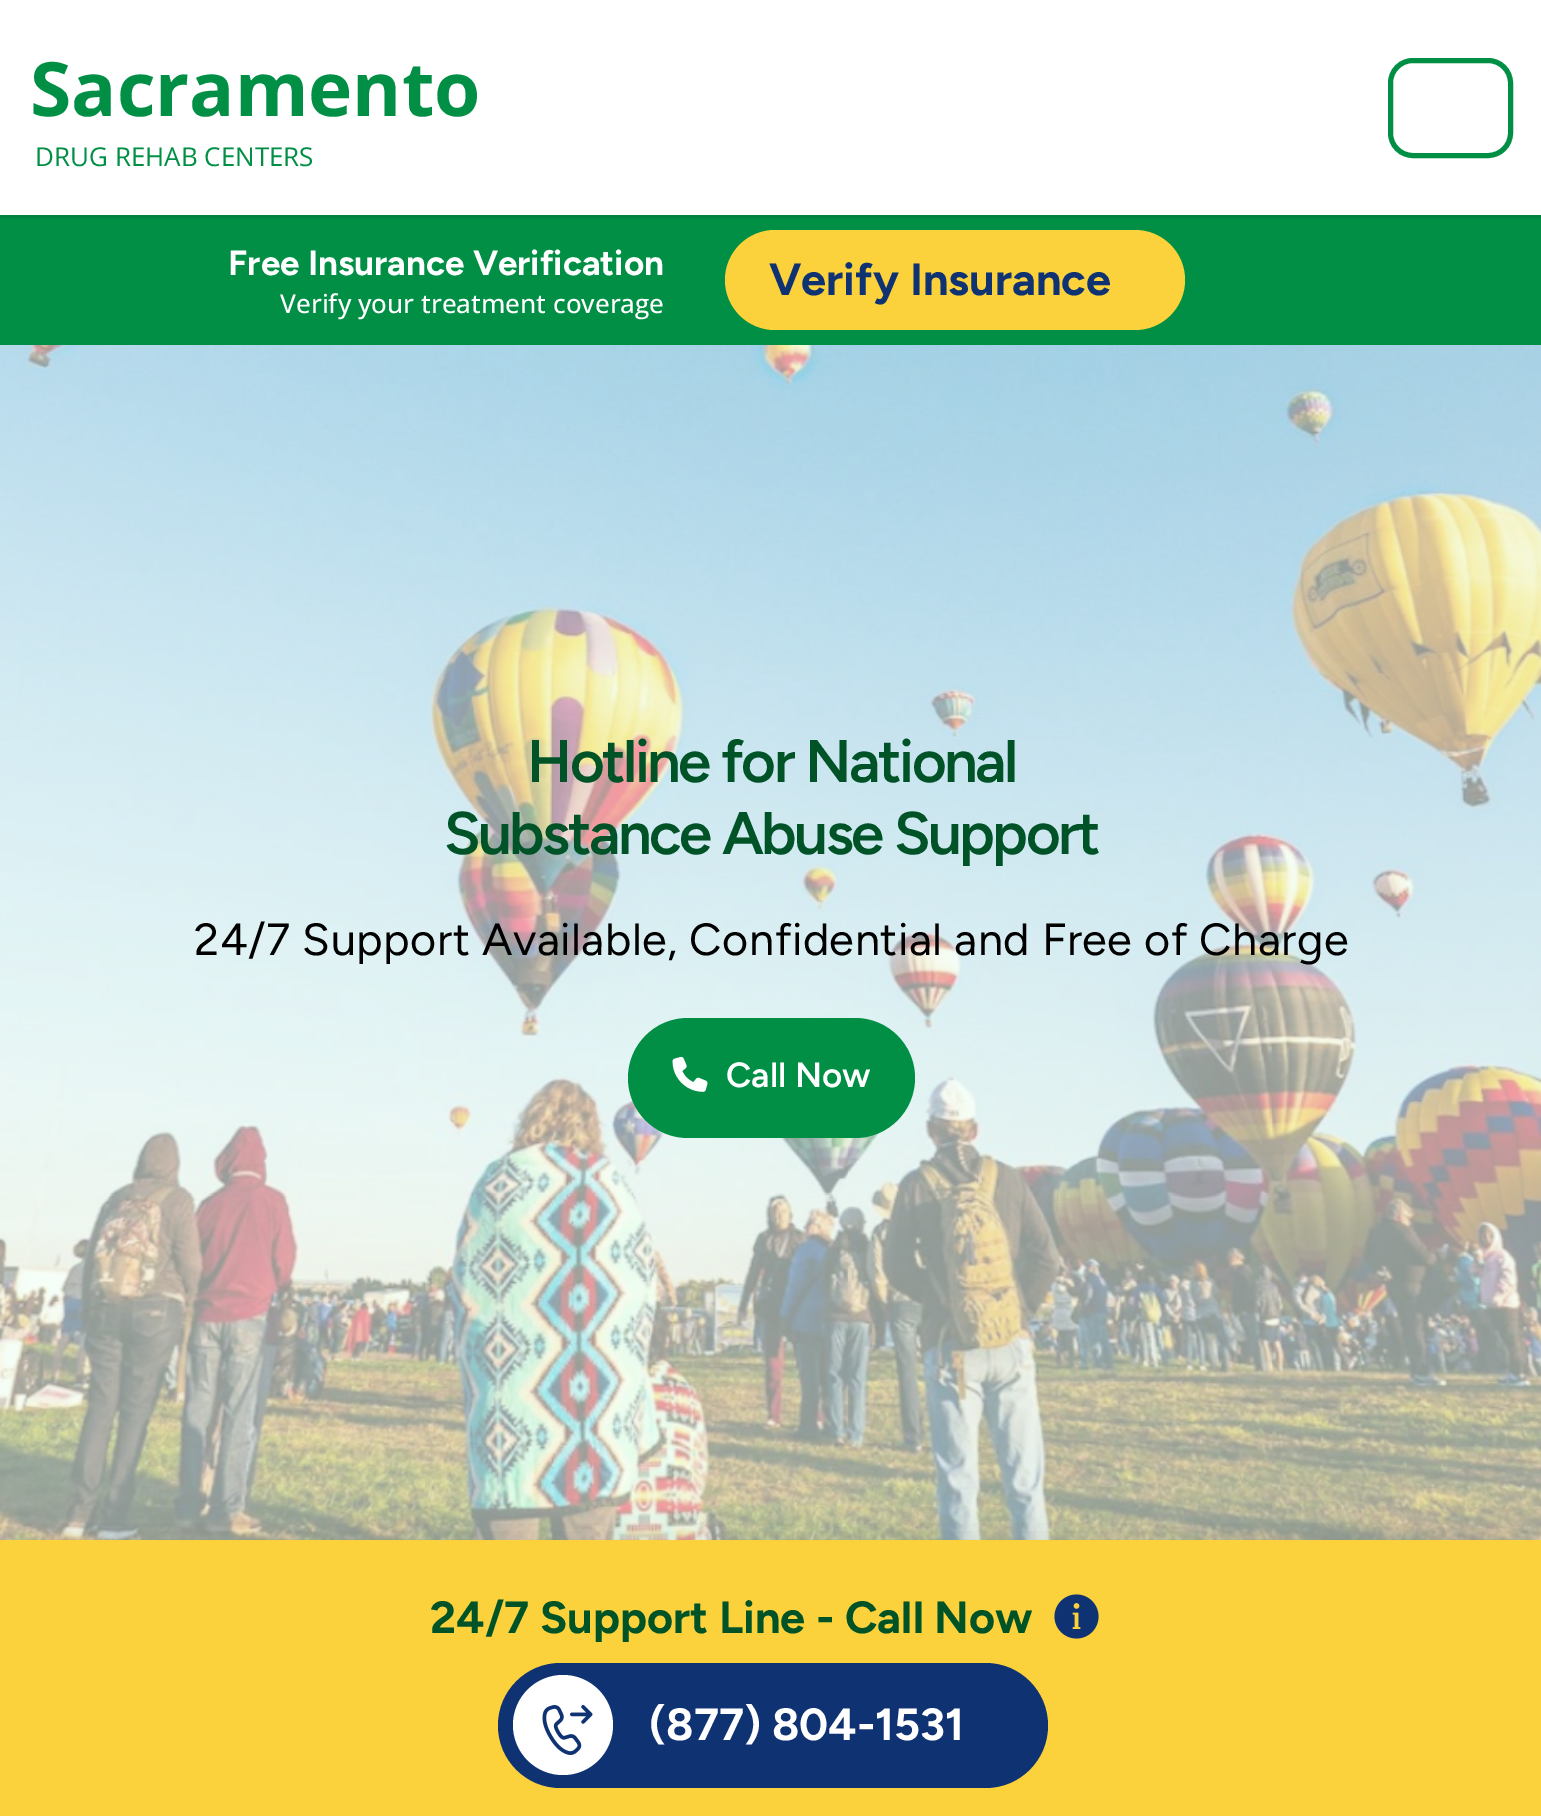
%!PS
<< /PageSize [1541 1816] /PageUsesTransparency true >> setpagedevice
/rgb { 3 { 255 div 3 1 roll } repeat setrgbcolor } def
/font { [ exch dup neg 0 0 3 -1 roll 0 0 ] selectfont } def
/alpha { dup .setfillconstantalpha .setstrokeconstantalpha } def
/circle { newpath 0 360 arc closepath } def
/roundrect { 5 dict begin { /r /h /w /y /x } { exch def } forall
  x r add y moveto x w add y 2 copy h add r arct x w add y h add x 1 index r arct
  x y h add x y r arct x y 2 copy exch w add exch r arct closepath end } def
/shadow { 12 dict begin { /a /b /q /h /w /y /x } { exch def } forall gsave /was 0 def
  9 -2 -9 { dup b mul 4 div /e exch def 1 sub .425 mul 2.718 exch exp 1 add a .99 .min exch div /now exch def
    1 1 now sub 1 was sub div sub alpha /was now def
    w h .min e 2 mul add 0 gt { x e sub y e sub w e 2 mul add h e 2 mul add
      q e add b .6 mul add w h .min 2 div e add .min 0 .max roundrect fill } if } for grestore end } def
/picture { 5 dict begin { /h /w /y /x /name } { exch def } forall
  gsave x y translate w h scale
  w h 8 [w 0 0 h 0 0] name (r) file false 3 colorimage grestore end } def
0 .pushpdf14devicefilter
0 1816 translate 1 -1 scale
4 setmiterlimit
255 255 255 rgb
0 0 1541 1816 rectfill
0 143 69 rgb
0 215 1541 130 rectfill
gsave
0 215 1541 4 rectclip
0 0 0 rgb
0 3 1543 215 0 1 0.08 shadow
grestore
5 setlinewidth
1390.5 60.5 120 95 22.5 roundrect stroke
251 209 60 rgb
725 230 460 100 50 roundrect fill
(img/1.rgb) 0 345 1541 1195 picture
0 143 69 rgb
628 1018 287 120 60 roundrect fill
(img/2.rgb) 672 1056 36 36 picture
0 0 0 rgb
23 1535 1497 233 0 16 0.1 shadow
251 209 60 rgb
0 1540 1541 276 rectfill
(img/3.rgb) 1054 1594 45 45 picture
14 50 114 rgb
498 1663 550 125 62.5 roundrect fill
255 255 255 rgb
563 1725 50 circle fill
(img/4.rgb) 542 1705 51 50 picture
/OpenSans-Bold 75 font
0 143 69 rgb
30 116 moveto (Sacramento) show
/OpenSans-Regular 26 font
35 166 moveto (DRUG REHAB CENTERS) show
/Figtree-Bold 35 font
255 255 255 rgb
228 275 moveto (Free Insurance Verification) show
/OpenSans-Medium 26 font
280 313 moveto (Verify your treatment coverage) show
/Figtree-Bold 45 font
14 50 114 rgb
769 295 moveto (Verify Insurance) show
/Figtree-SemiBold 60 font
0 82 39 rgb
527 782 moveto -2.5 0 (Hotline for National) ashow
444 854 moveto -2.5 0 (Substance Abuse Support) ashow
/Figtree-Regular 45 font
0 0 0 rgb
194 955 moveto 0.5 0 (24/7 Support Available, Confidential and Free of Charge) ashow
/Figtree-SemiBold 35 font
255 255 255 rgb
726 1087 moveto (Call Now) show
/Figtree-Bold 45 font
0 82 39 rgb
430 1633 moveto (24/7 Support Line - Call Now) show
255 255 255 rgb
649 1740 moveto (\(877\) 804-1531) show
.poppdf14devicefilter showpage
